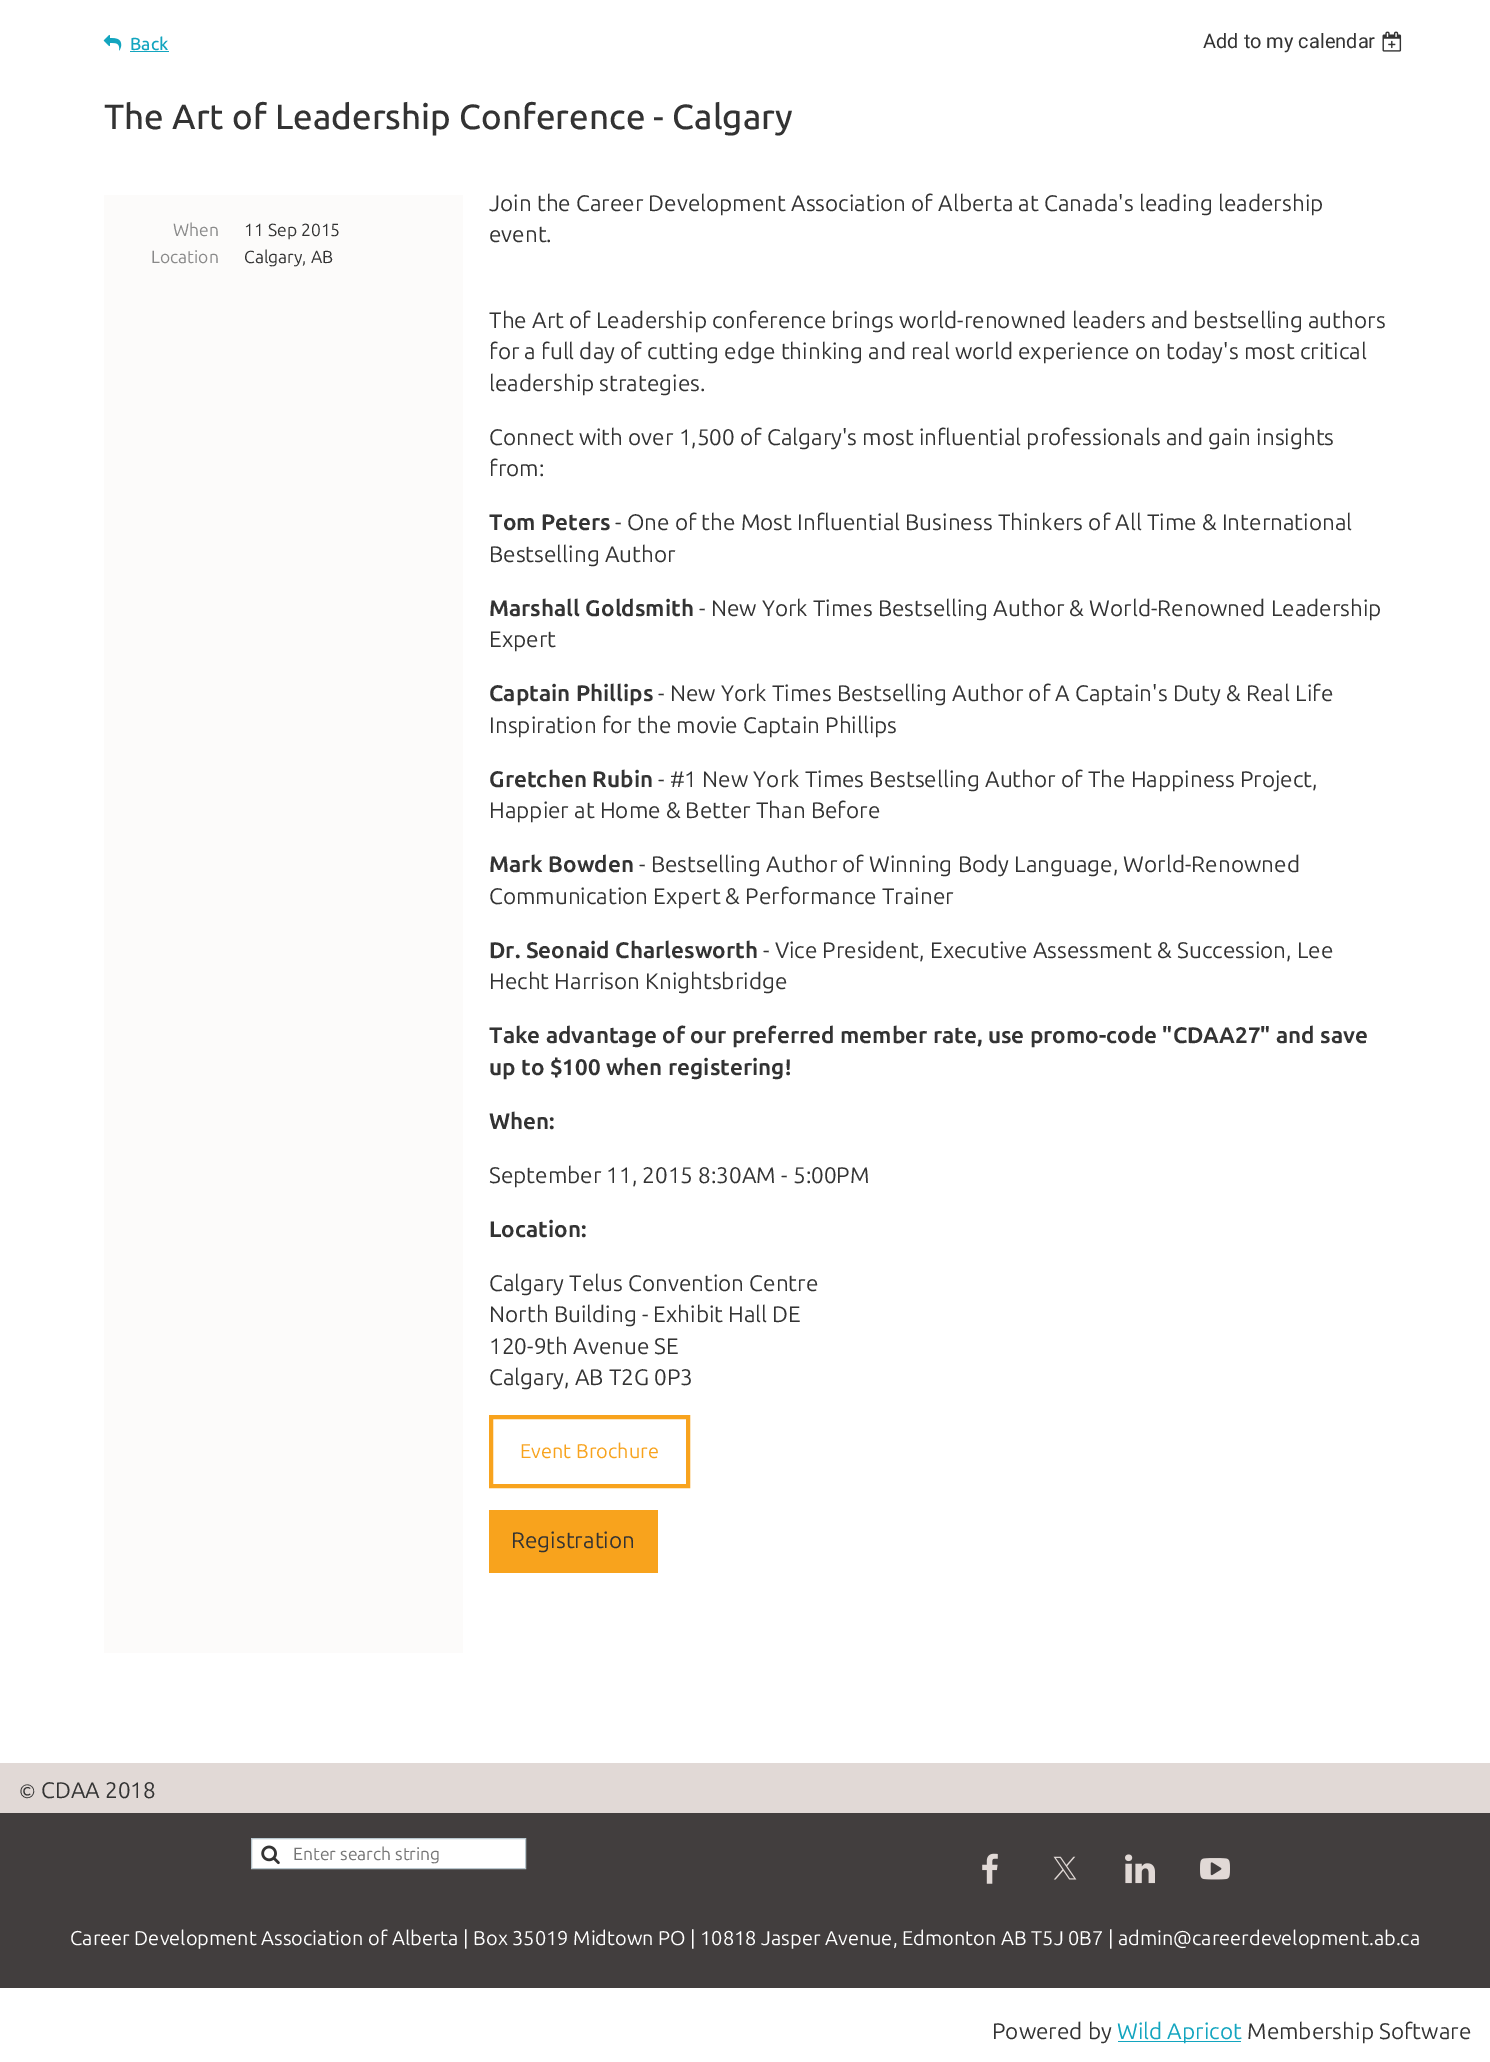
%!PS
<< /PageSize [1490 2062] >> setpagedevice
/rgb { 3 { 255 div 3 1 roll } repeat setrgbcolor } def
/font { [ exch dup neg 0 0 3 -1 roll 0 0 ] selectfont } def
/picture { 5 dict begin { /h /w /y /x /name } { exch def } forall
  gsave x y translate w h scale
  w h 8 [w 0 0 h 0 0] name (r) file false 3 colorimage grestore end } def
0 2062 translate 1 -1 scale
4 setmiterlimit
255 255 255 rgb
0 0 1490 2062 rectfill
(img/1.rgb) 103 34 19 17 picture
19 165 191 rgb
130 51 39 1 rectfill
(img/2.rgb) 1382 31 20 21 picture
252 251 250 rgb
104 195 359 1458 rectfill
248 163 29 rgb
4 setlinewidth
491 1417 197 69 rectstroke
[
  [489 1510 169 63 248 163 29]
  [0 1763 1490 50 225 217 214]
  [0 1813 1490 175 66 62 62]
] { aload pop rgb rectfill } forall
255 255 255 rgb
251.5 1838.5 moveto 525.5 1838.5 lineto 525.5 1868.5 lineto 251.5 1868.5 lineto closepath gsave fill grestore
184 198 205 rgb
1 setlinewidth
stroke
(img/3.rgb) 261 1845 19 20 picture
(img/4.rgb) 982 1853 16 31 picture
(img/5.rgb) 1053 1856 24 24 picture
(img/6.rgb) 1125 1854 30 30 picture
(img/7.rgb) 1200 1858 30 22 picture
19 165 191 rgb
1118 2041 123 1 rectfill
/Ubuntu-Medium 17.5 font
130 50 moveto (Back) show
/Roboto-Regular 20 font
51 51 51 rgb
1203 48 moveto (Add to my calendar) show
/Ubuntu-Medium 35 font
104 129 moveto (The Art of Leadership Conference - Calgary) show
/Ubuntu-Regular 17.5 font
137 137 137 rgb
173 236 moveto (When) show
51 51 51 rgb
244 236 moveto (11 Sep 2015) show
137 137 137 rgb
151 263 moveto (Location) show
51 51 51 rgb
244 263 moveto (Calgary, AB) show
/Ubuntu-Regular 22.5 font
[
  [(Join the Career Development Association of Alberta at Canada's leading leadership) 489 211]
  [(event.) 489 242]
  [(The Art of Leadership conference brings world-renowned leaders and bestselling authors) 489 328]
  [(for a full day of cutting edge thinking and real world experience on today's most critical) 489 359]
  [(leadership strategies.) 489 391]
  [(Connect with over 1,500 of Calgary's most influential professionals and gain insights) 489 445]
  [(from:) 489 476]
] { aload pop moveto show } forall
/Ubuntu-Bold 22.5 font
489 530 moveto (Tom Peters) show
/Ubuntu-Regular 22.5 font
615 530 moveto (- One of the Most Influential Business Thinkers of All Time & International) show
489 562 moveto (Bestselling Author) show
/Ubuntu-Bold 22.5 font
489 616 moveto (Marshall Goldsmith) show
/Ubuntu-Regular 22.5 font
699 616 moveto (- New York Times Bestselling Author & World-Renowned Leadership) show
489 647 moveto (Expert) show
/Ubuntu-Bold 22.5 font
489 701 moveto (Captain Phillips) show
/Ubuntu-Regular 22.5 font
658 701 moveto (- New York Times Bestselling Author of A Captain's Duty & Real Life) show
489 733 moveto (Inspiration for the movie Captain Phillips) show
/Ubuntu-Bold 22.5 font
489 787 moveto (Gretchen Rubin) show
/Ubuntu-Regular 22.5 font
658 787 moveto (- #1 New York Times Bestselling Author of The Happiness Project,) show
489 818 moveto (Happier at Home & Better Than Before) show
/Ubuntu-Bold 22.5 font
489 872 moveto (Mark Bowden) show
/Ubuntu-Regular 22.5 font
639 872 moveto (- Bestselling Author of Winning Body Language, World-Renowned) show
489 904 moveto (Communication Expert & Performance Trainer) show
/Ubuntu-Bold 22.5 font
489 958 moveto (Dr. Seonaid Charlesworth) show
/Ubuntu-Regular 22.5 font
763 958 moveto (- Vice President, Executive Assessment & Succession, Lee) show
489 989 moveto (Hecht Harrison Knightsbridge) show
/Ubuntu-Bold 22.5 font
[
  [(Take advantage of our preferred member rate, use promo-code "CDAA27" and save) 489 1043]
  [(up to $100 when registering!) 489 1075]
  [(When:) 489 1129]
] { aload pop moveto show } forall
/Ubuntu-Regular 22.5 font
489 1183 moveto (September 11, 2015 8:30AM - 5:00PM) show
/Ubuntu-Bold 22.5 font
489 1237 moveto (Location:) show
/Ubuntu-Regular 22.5 font
[
  [(Calgary Telus Convention Centre) 489 1291]
  [(North Building - Exhibit Hall DE) 489 1322]
  [(120-9th Avenue SE) 489 1354]
  [(Calgary, AB T2G 0P3) 489 1385]
] { aload pop moveto show } forall
/Ubuntu-Regular 20 font
248 163 29 rgb
520 1458 moveto (Event Brochure) show
/Ubuntu-Regular 22.5 font
51 51 51 rgb
511 1548 moveto (Registration) show
/Carlito-Regular 20 font
19 1798 moveto (©) show
/Ubuntu-Regular 22.5 font
41 1798 moveto (CDAA 2018) show
/Ubuntu-Regular 17.5 font
117 117 117 rgb
293 1860 moveto (Enter search string) show
/Ubuntu-Regular 20 font
255 255 255 rgb
70 1945 moveto (Career Development Association of Alberta | Box 35019 Midtown PO | 10818 Jasper Avenue, Edmonton AB T5J 0B7 | admin@careerdevelopment.ab.ca) show
/Ubuntu-Regular 22.5 font
51 51 51 rgb
992 2039 moveto (Powered by) show
19 165 191 rgb
1117 2039 moveto (Wild Apricot) show
51 51 51 rgb
1247 2039 moveto (Membership Software) show
showpage
